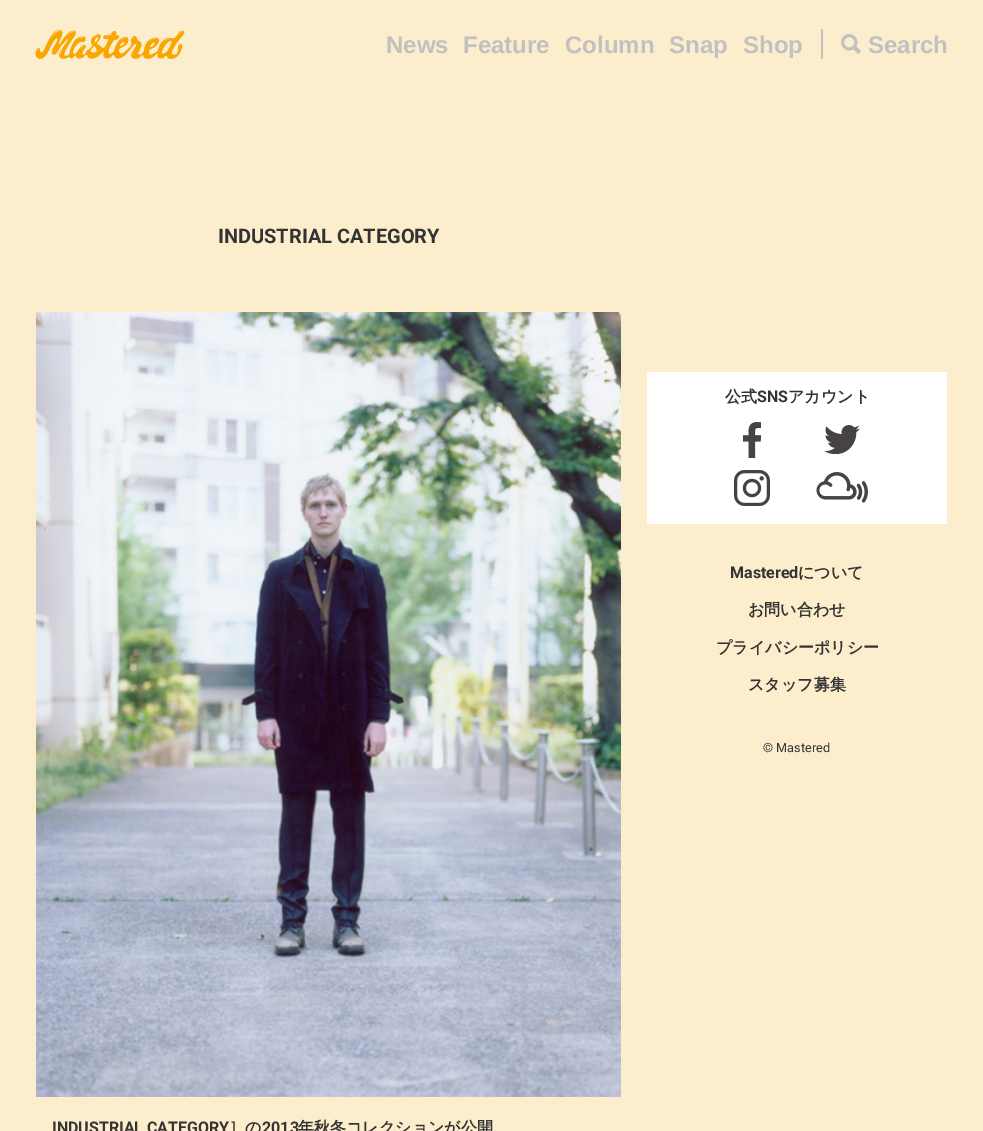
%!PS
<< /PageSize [983 1131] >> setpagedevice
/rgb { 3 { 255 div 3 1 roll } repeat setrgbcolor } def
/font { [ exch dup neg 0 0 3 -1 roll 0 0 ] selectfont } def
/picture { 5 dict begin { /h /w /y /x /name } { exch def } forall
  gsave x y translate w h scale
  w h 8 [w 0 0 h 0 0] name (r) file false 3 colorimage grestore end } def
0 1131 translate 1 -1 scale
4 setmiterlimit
252 238 204 rgb
0 0 983 1131 rectfill
(img/1.rgb) 35 30 150 29 picture
193 193 193 rgb
821 29 2 30 rectfill
(img/2.rgb) 841 34 20 20 picture
(img/3.rgb) 36 312 585 785 picture
255 255 255 rgb
647 372 300 152 rectfill
(img/4.rgb) 743 422 18 36 picture
(img/5.rgb) 824 425 36 29 picture
(img/6.rgb) 734 470 36 36 picture
(img/7.rgb) 816 472 52 31 picture
/LiberationSans-Bold 24 font
193 193 193 rgb
[
  [(News) 386 53]
  [(Feature) 463 53]
  [(Column) 565 53]
  [(Snap) 669 53]
  [(Shop) 743 53]
  [(Search) 868 53]
] { aload pop moveto show } forall
/Roboto-Bold 20 font
51 51 51 rgb
218 243 moveto (INDUSTRIAL CATEGORY) show
/Roboto-Bold 16 font
52 1133 moveto (INDUSTRIAL CATEGORY) show
/WenQuanYiZenHei-Bold 16 font
229 1133 moveto (］の) show
/Roboto-Bold 16 font
262 1133 moveto (2013) show
/WenQuanYiZenHei-Bold 16 font
298 1133 moveto (年秋冬コレクションが公開) show
725 402 moveto (公式) show
/Roboto-Bold 16 font
757 402 moveto (SNS) show
/WenQuanYiZenHei-Bold 16 font
788 402 moveto (アカウント) show
/Roboto-Bold 16 font
730 578 moveto (Mastered) show
/WenQuanYiZenHei-Bold 16 font
[
  [(について) 798 578]
  [(お問い合わせ) 748 615]
  [(プライバシーポリシー) 716 653]
  [(スタッフ募集) 748 690]
] { aload pop moveto show } forall
/Roboto-Regular 12.75 font
763 752 moveto (© Mastered) show
showpage
